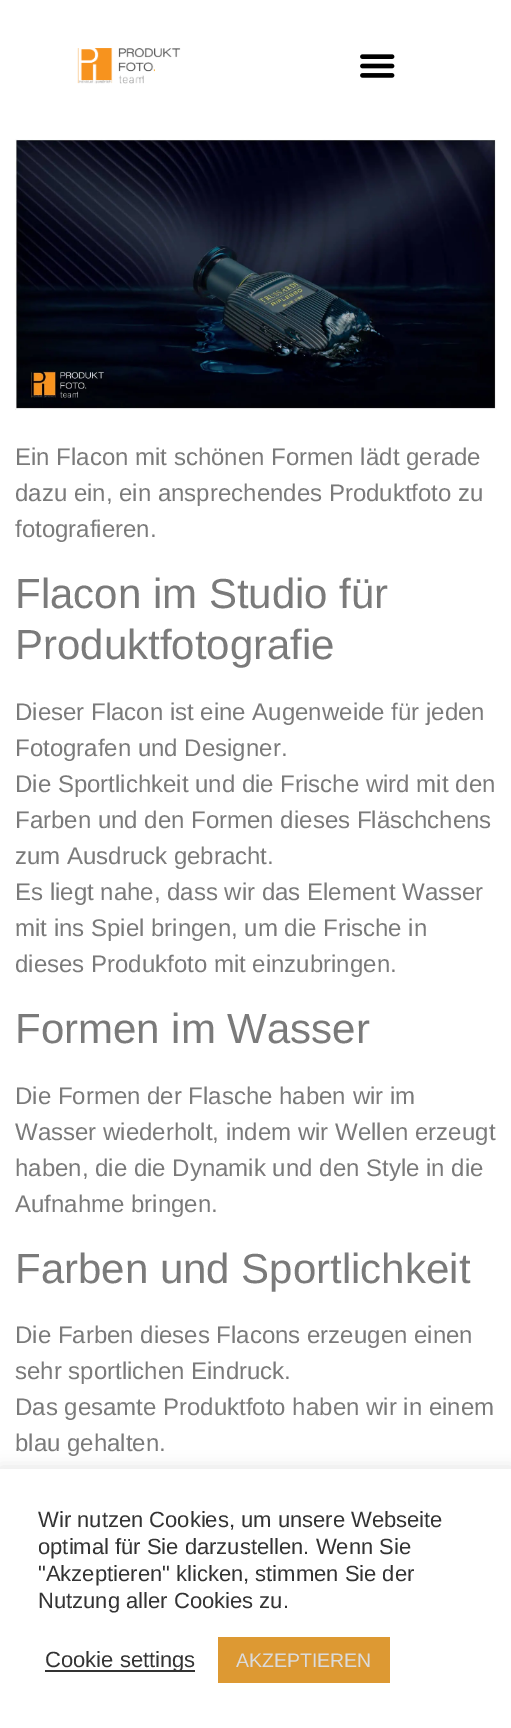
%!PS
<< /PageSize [511 1728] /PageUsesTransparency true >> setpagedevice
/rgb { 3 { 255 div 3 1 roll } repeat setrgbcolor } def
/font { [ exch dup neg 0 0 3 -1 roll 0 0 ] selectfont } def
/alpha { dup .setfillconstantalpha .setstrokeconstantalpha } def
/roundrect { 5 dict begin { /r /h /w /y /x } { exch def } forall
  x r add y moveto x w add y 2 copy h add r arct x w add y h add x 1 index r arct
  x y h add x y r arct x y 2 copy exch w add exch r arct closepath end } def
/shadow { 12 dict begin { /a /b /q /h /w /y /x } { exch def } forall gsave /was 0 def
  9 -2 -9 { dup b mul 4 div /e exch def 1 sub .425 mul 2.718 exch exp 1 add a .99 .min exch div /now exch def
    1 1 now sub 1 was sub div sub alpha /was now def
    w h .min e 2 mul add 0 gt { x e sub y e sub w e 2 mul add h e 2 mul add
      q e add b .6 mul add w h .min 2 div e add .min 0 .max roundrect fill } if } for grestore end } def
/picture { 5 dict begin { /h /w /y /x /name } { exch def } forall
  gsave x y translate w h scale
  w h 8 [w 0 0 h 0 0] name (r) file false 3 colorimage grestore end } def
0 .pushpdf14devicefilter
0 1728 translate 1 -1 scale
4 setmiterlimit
255 255 255 rgb
0 0 511 1728 rectfill
(img/1.rgb) 77 48 104 36 picture
(img/2.rgb) 360 54 35 24 picture
(img/3.rgb) 15 139 482 271 picture
172 171 171 rgb
0 1467 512 260 0 7.5 0.3 shadow
[
  [0 1469 511 259 255 255 255]
  [45 1670 150 2 51 51 51]
  [218 1637 172 46 221 153 51]
] { aload pop rgb rectfill } forall
/LiberationSans-Regular 24 font
122 122 122 rgb
[
  [(Ein Flacon mit schönen Formen lädt gerade) 15 465]
  [(dazu ein, ein ansprechendes Produktfoto zu) 15 501]
  [(fotografieren.) 15 537]
] { aload pop moveto show } forall
/LiberationSans-Regular 42 font
15 608 moveto (Flacon im Studio für) show
15 659 moveto (Produktfotografie) show
/LiberationSans-Regular 24 font
[
  [(Dieser Flacon ist eine Augenweide für jeden) 15 720]
  [(Fotografen und Designer.) 15 756]
  [(Die Sportlichkeit und die Frische wird mit den) 15 792]
  [(Farben und den Formen dieses Fläschchens) 15 828]
  [(zum Ausdruck gebracht.) 15 864]
  [(Es liegt nahe, dass wir das Element Wasser) 15 900]
  [(mit ins Spiel bringen, um die Frische in) 15 936]
  [(dieses Produkfoto mit einzubringen.) 15 972]
] { aload pop moveto show } forall
/LiberationSans-Regular 42 font
15 1043 moveto (Formen im Wasser) show
/LiberationSans-Regular 24 font
[
  [(Die Formen der Flasche haben wir im) 15 1104]
  [(Wasser wiederholt, indem wir Wellen erzeugt) 15 1140]
  [(haben, die die Dynamik und den Style in die) 15 1176]
  [(Aufnahme bringen.) 15 1212]
] { aload pop moveto show } forall
/LiberationSans-Regular 42 font
15 1283 moveto (Farben und Sportlichkeit) show
/LiberationSans-Regular 24 font
[
  [(Die Farben dieses Flacons erzeugen einen) 15 1343]
  [(sehr sportlichen Eindruck.) 15 1379]
  [(Das gesamte Produktfoto haben wir in einem) 15 1415]
  [(blau gehalten.) 15 1451]
] { aload pop moveto show } forall
/LiberationSans-Regular 22 font
51 51 51 rgb
[
  [(Wir nutzen Cookies, um unsere Webseite) 38 1527]
  [(optimal für Sie darzustellen. Wenn Sie) 38 1554]
  [("Akzeptieren" klicken, stimmen Sie der) 38 1581]
  [(Nutzung aller Cookies zu.) 38 1608]
  [(Cookie settings) 45 1667]
] { aload pop moveto show } forall
/LiberationSans-Regular 19.5 font
219 219 219 rgb
236 1667 moveto (AKZEPTIEREN) show
.poppdf14devicefilter showpage
